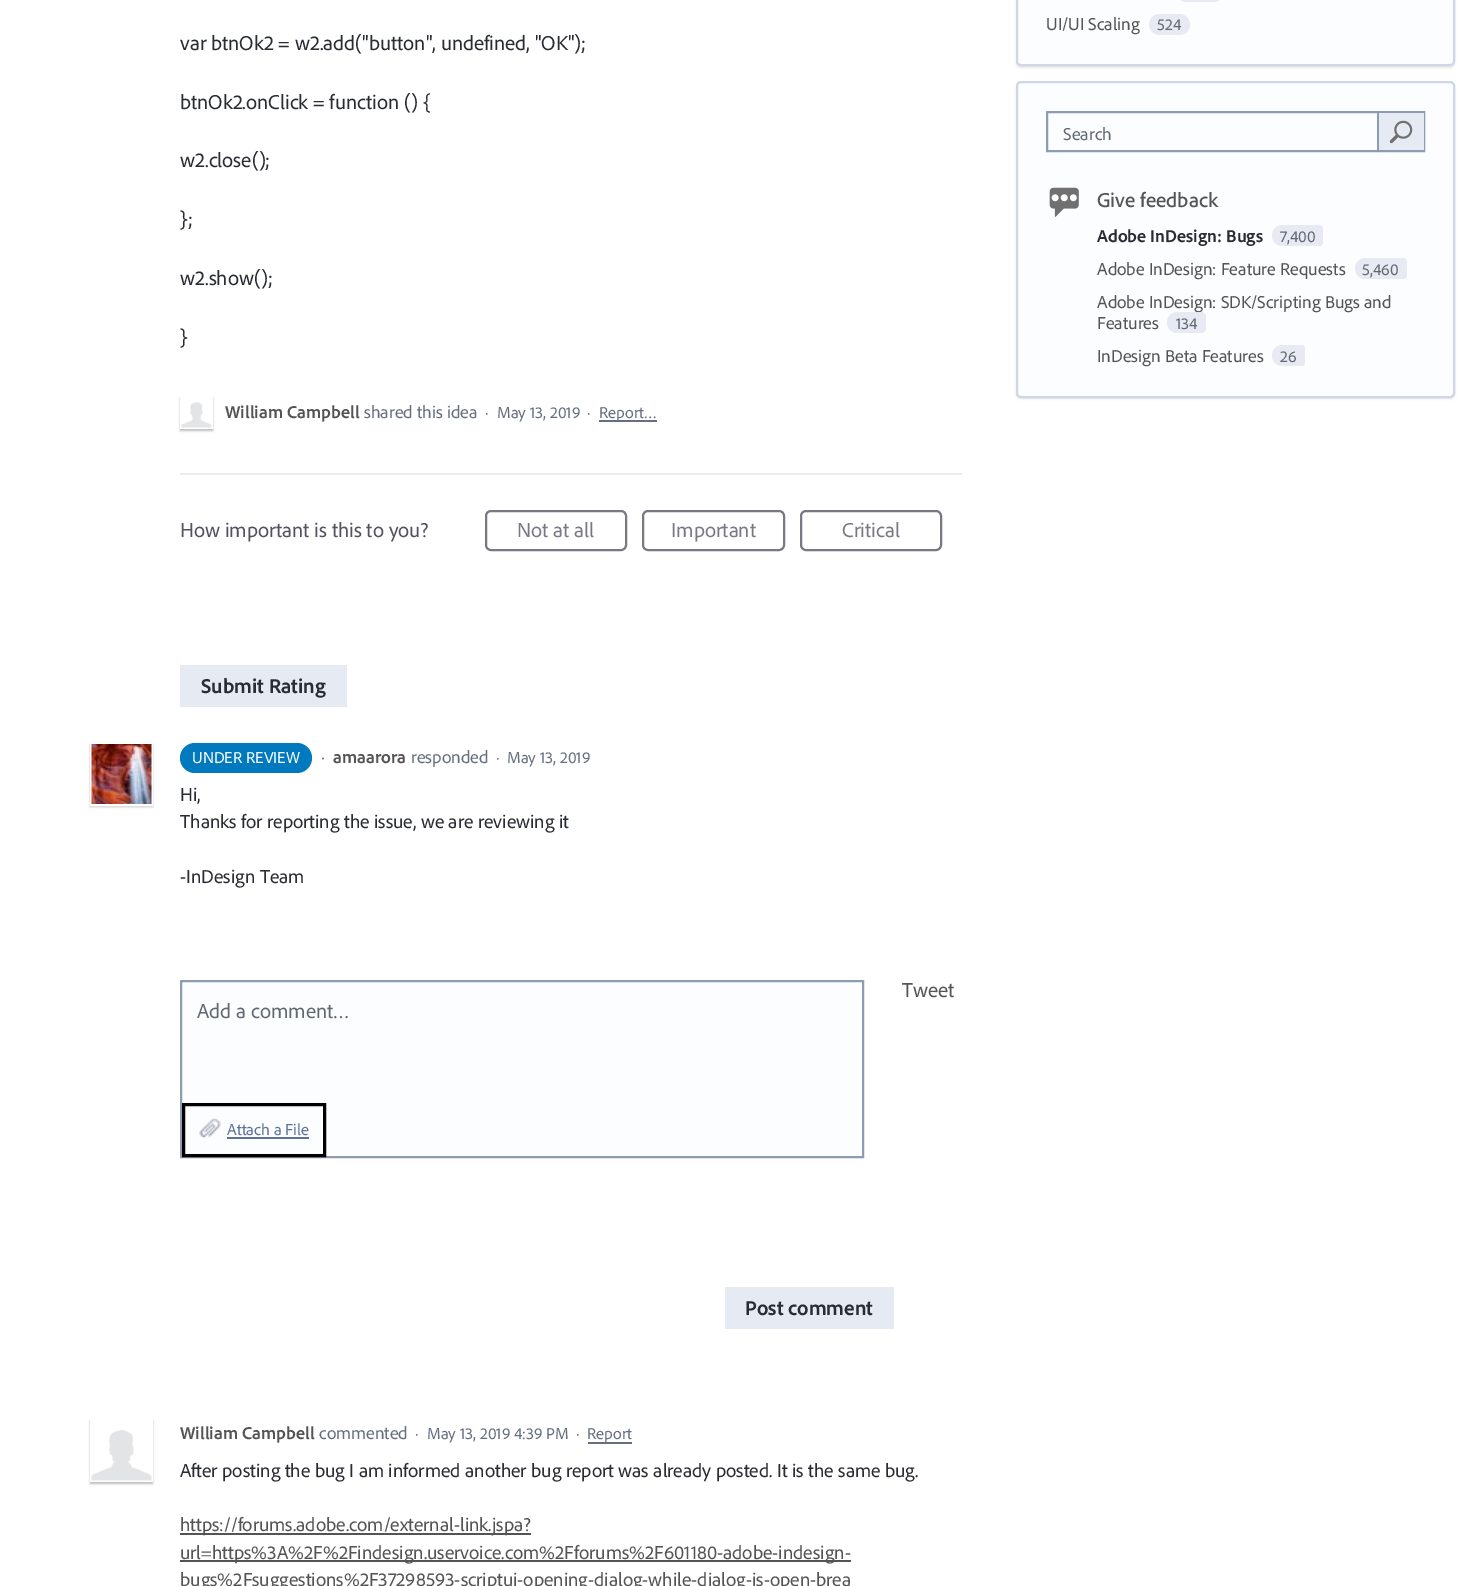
%!PS
<< /PageSize [1484 1586] /PageUsesTransparency true >> setpagedevice
/rgb { 3 { 255 div 3 1 roll } repeat setrgbcolor } def
/font { [ exch dup neg 0 0 3 -1 roll 0 0 ] selectfont } def
/alpha { dup .setfillconstantalpha .setstrokeconstantalpha } def
/roundrect { 5 dict begin { /r /h /w /y /x } { exch def } forall
  x r add y moveto x w add y 2 copy h add r arct x w add y h add x 1 index r arct
  x y h add x y r arct x y 2 copy exch w add exch r arct closepath end } def
/shadow { 12 dict begin { /a /b /q /h /w /y /x } { exch def } forall gsave /was 0 def
  9 -2 -9 { dup b mul 4 div /e exch def 1 sub .425 mul 2.718 exch exp 1 add a .99 .min exch div /now exch def
    1 1 now sub 1 was sub div sub alpha /was now def
    w h .min e 2 mul add 0 gt { x e sub y e sub w e 2 mul add h e 2 mul add
      q e add b .6 mul add w h .min 2 div e add .min 0 .max roundrect fill } if } for grestore end } def
/picture { 5 dict begin { /h /w /y /x /name } { exch def } forall
  gsave x y translate w h scale
  w h 8 [w 0 0 h 0 0] name (r) file false 3 colorimage grestore end } def
0 .pushpdf14devicefilter
0 1586 translate 1 -1 scale
4 setmiterlimit
255 255 255 rgb
0 0 1484 1586 rectfill
gsave
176 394 moveto 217 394 lineto 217 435 lineto 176 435 lineto closepath 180 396 moveto 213 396 lineto 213 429 lineto 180 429 lineto closepath eoclip newpath
0 0 0 rgb
180 398 33 33 0 1 0.25 shadow
grestore
(img/1.rgb) 181 402 31 26 picture
102 111 128 rgb
599 420 58 2 rectfill
235 235 241 rgb
180 473 782 2 rectfill
121 121 134 rgb
2 setlinewidth
486 511 140 39 5 roundrect stroke
643 511 141 39 5 roundrect stroke
801 511 140 39 5 roundrect stroke
230 234 242 rgb
180 665 167 42 rectfill
0 121 191 rgb
180 743 132 30 15 roundrect fill
0 0 0 rgb
90 744 63 63 0 1 0.25 shadow
255 255 255 rgb
91 744 61 61 rectstroke
(img/2.rgb) 91 744 61 60 picture
252 253 255 rgb
181 981 moveto 863 981 lineto 863 1157 lineto 181 1157 lineto closepath gsave fill grestore
143 155 179 rgb
stroke
(img/3.rgb) 199 1118 22 20 picture
0 0 0 rgb
3 setlinewidth
183.5 1104.5 141 51 rectstroke
93 114 152 rgb
227 1137 82 2 rectfill
230 234 242 rgb
725 1287 169 42 rectfill
gsave
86 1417 moveto 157 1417 lineto 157 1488 lineto 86 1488 lineto closepath 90 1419 moveto 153 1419 lineto 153 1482 lineto 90 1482 lineto closepath eoclip newpath
0 0 0 rgb
90 1421 63 63 0 1 0.25 shadow
grestore
(img/4.rgb) 91 1430 61 51 picture
[
  [588 1442 44 2 102 111 128]
  [180 1533 351 2 84 84 84]
  [180 1560 671 2 84 84 84]
] { aload pop rgb rectfill } forall
0 0 0 rgb
1016 -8 439 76 5 1 0.1 shadow
252 253 255 rgb
1017 -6 437 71 4 roundrect gsave fill grestore
207 215 230 rgb
2 setlinewidth
stroke
231 234 242 rgb
1176 -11 48 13 10.5 roundrect fill
1149 14 41 21 10.5 roundrect fill
0 0 0 rgb
1016 83 439 316 5 1 0.1 shadow
252 253 255 rgb
1017 82 437 315 4 roundrect gsave fill grestore
207 215 230 rgb
stroke
143 155 179 rgb
1047 112 377 39 rectstroke
230 234 242 rgb
1379 113 45 37 rectfill
143 155 179 rgb
1377 113 2 37 rectfill
(img/5.rgb) 1389 120 24 24 picture
(img/6.rgb) 1049 187 30 30 picture
231 234 242 rgb
1282.5 225 moveto 1316 225 lineto 1316 246 lineto 1282.5 246 lineto 1276.5 246 1272 241.5 1272 235.5 curveto 1272 229.5 1276.5 225 1282.5 225 curveto closepath fill
1316 225 moveto 1319.5 225 lineto 1321.5 225 1323 226.5 1323 228.5 curveto 1323 242.5 lineto 1323 244.5 1321.5 246 1319.5 246 curveto 1316 246 lineto closepath fill
1365.5 258 moveto 1400 258 lineto 1400 279 lineto 1365.5 279 lineto 1359.5 279 1355 274.5 1355 268.5 curveto 1355 262.5 1359.5 258 1365.5 258 curveto closepath fill
1400 258 moveto 1403.5 258 lineto 1405.5 258 1407 259.5 1407 261.5 curveto 1407 275.5 lineto 1407 277.5 1405.5 279 1403.5 279 curveto 1400 279 lineto closepath fill
1282.5 345 moveto 1298 345 lineto 1298 366 lineto 1282.5 366 lineto 1276.5 366 1272 361.5 1272 355.5 curveto 1272 349.5 1276.5 345 1282.5 345 curveto closepath fill
1298 345 moveto 1301.5 345 lineto 1303.5 345 1305 346.5 1305 348.5 curveto 1305 362.5 lineto 1305 364.5 1303.5 366 1301.5 366 curveto 1298 366 lineto closepath fill
/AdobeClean-Regular 21 font
41 44 51 rgb
[
  [(var btnOk2 = w2.add\("button", undefined, "OK"\);) 180 50]
  [(btnOk2.onClick = function \(\) {) 180 109]
  [(w2.close\(\);) 180 167]
  [(};) 180 226]
  [(w2.show\(\);) 180 285]
  [(}) 180 344]
] { aload pop moveto show } forall
/AdobeClean-Bold 18 font
84 84 84 rgb
225 418 moveto (William Campbell) show
/AdobeClean-Regular 18 font
102 111 128 rgb
364 418 moveto (shared this idea) show
/AdobeClean-Regular 16.5 font
97 105 115 rgb
485 418 moveto (·) show
102 111 128 rgb
497 418 moveto (May 13, 2019) show
97 105 115 rgb
587 418 moveto (·) show
102 111 128 rgb
599 418 moveto (Report…) show
/AdobeClean-Regular 21 font
82 82 96 rgb
180 537 moveto (How important is this to you?) show
121 121 134 rgb
[
  [(Not at all) 517 537]
  [(Important) 671 537]
  [(Critical) 842 537]
] { aload pop moveto show } forall
/AdobeClean-Bold 21 font
41 44 51 rgb
201 693 moveto (Submit Rating) show
/AdobeClean-Regular 16.5 font
255 255 255 rgb
192 763 moveto (UNDER REVIEW) show
/AdobeClean-Regular 18 font
97 105 115 rgb
321 763 moveto (·) show
/AdobeClean-Bold 18 font
84 84 84 rgb
333 763 moveto (amaarora) show
/AdobeClean-Regular 18 font
102 111 128 rgb
411 763 moveto (responded) show
/AdobeClean-Regular 16.5 font
97 105 115 rgb
496 763 moveto (·) show
102 111 128 rgb
507 763 moveto (May 13, 2019) show
/AdobeClean-Regular 19.5 font
41 44 51 rgb
[
  [(Hi,) 180 801]
  [(Thanks for reporting the issue, we are reviewing it) 180 828]
  [(-InDesign Team) 180 883]
] { aload pop moveto show } forall
/AdobeClean-Regular 21 font
84 84 84 rgb
902 997 moveto (Tweet) show
97 105 115 rgb
197 1018 moveto (Add a comment…) show
/AdobeClean-Regular 16.5 font
93 114 152 rgb
227 1135 moveto (Attach a File) show
/AdobeClean-Bold 21 font
41 44 51 rgb
745 1315 moveto (Post comment) show
/AdobeClean-Bold 18 font
84 84 84 rgb
180 1439 moveto (William Campbell) show
/AdobeClean-Regular 18 font
102 111 128 rgb
319 1439 moveto (commented) show
/AdobeClean-Regular 16.5 font
97 105 115 rgb
415 1439 moveto (·) show
102 111 128 rgb
427 1439 moveto (May 13, 2019 4:39 PM) show
97 105 115 rgb
576 1439 moveto (·) show
102 111 128 rgb
587 1439 moveto (Report) show
/AdobeClean-Regular 19.5 font
41 44 51 rgb
180 1477 moveto (After posting the bug I am informed another bug report was already posted. It is the same bug.) show
84 84 84 rgb
[
  [(https://forums.adobe.com/external-link.jspa?) 180 1531]
  [(url=https%3A%2F%2Findesign.uservoice.com%2Fforums%2F601180-adobe-indesign-) 180 1559]
  [(bugs%2Fsuggestions%2F37298593-scriptui-opening-dialog-while-dialog-is-open-brea) 180 1586]
] { aload pop moveto show } forall
/AdobeClean-Regular 18 font
1046 30 moveto (UI/UI Scaling) show
/AdobeClean-Regular 16.5 font
97 105 115 rgb
1157 30 moveto (524) show
/AdobeClean-Regular 18 font
1063 140 moveto (Search) show
/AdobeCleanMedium-Medium 21 font
84 84 84 rgb
1097 207 moveto (Give feedback) show
/AdobeClean-Bold 18 font
41 44 51 rgb
1097 242 moveto (Adobe InDesign: Bugs) show
/AdobeClean-Regular 16.5 font
97 105 115 rgb
1280 242 moveto (7,400) show
/AdobeClean-Regular 18 font
84 84 84 rgb
1097 275 moveto (Adobe InDesign: Feature Requests) show
/AdobeClean-Regular 16.5 font
97 105 115 rgb
1362 275 moveto (5,460) show
/AdobeClean-Regular 18 font
84 84 84 rgb
1097 308 moveto (Adobe InDesign: SDK/Scripting Bugs and) show
1097 329 moveto (Features) show
231 234 242 rgb
1177.5 312 moveto 1197 312 lineto 1197 333 lineto 1177.5 333 lineto 1171.5 333 1167 328.5 1167 322.5 curveto 1167 316.5 1171.5 312 1177.5 312 curveto closepath fill
1197 312 moveto 1201.5 312 lineto 1204 312 1206 314 1206 316.5 curveto 1206 328.5 lineto 1206 331 1204 333 1201.5 333 curveto 1197 333 lineto closepath fill
/AdobeClean-Regular 16.5 font
97 105 115 rgb
1176 329 moveto (134) show
/AdobeClean-Regular 18 font
84 84 84 rgb
1097 362 moveto (InDesign Beta Features) show
/AdobeClean-Regular 16.5 font
97 105 115 rgb
1280 362 moveto (26) show
.poppdf14devicefilter showpage
